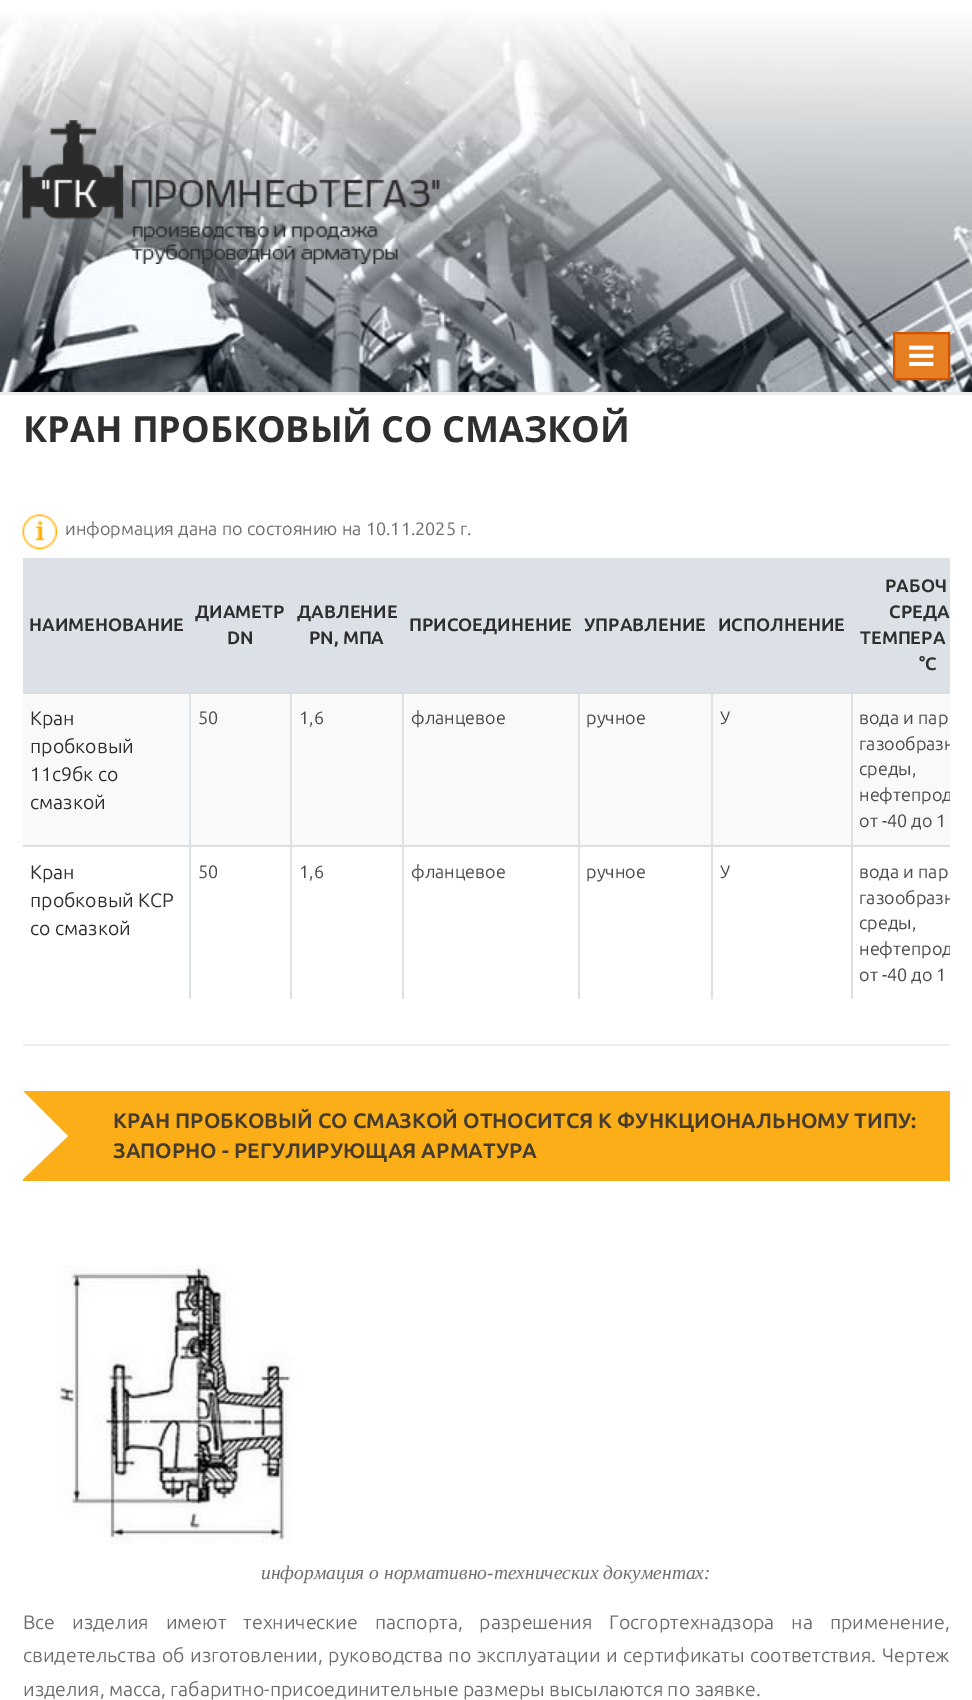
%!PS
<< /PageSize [972 1700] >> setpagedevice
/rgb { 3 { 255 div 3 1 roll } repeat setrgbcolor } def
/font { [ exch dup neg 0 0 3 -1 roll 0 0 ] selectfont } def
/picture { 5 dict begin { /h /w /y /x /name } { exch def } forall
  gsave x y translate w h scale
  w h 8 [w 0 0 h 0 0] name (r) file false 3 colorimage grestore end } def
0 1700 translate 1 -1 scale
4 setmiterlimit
255 255 255 rgb
0 0 972 1700 rectfill
(img/1.rgb) 0 12 972 380 picture
238 238 238 rgb
0 392 972 3 rectfill
(img/2.rgb) 22 120 418 144 picture
230 126 34 rgb
894 333 moveto 949 333 lineto 949 379 lineto 894 379 lineto closepath gsave fill grestore
211 84 0 rgb
2 setlinewidth
stroke
(img/3.rgb) 909 345 25 21 picture
(img/4.rgb) 22 514 35 35 picture
[
  [23 558 927 134 220 225 231]
  [23 694 927 151 249 249 249]
  [851 692 99 2 221 221 221]
  [851 845 99 2 221 221 221]
  [851 845 2 154 220 225 231]
  [711 845 141 2 221 221 221]
  [851 692 2 154 220 225 231]
  [711 692 141 2 221 221 221]
  [711 845 2 154 220 225 231]
  [578 845 135 2 221 221 221]
  [711 692 2 154 220 225 231]
  [578 692 135 2 221 221 221]
  [578 845 2 154 220 225 231]
  [402 845 177 2 221 221 221]
  [578 692 2 154 220 225 231]
  [402 692 177 2 221 221 221]
  [402 845 2 154 220 225 231]
  [290 845 114 2 221 221 221]
  [402 692 2 154 220 225 231]
  [290 692 114 2 221 221 221]
  [290 845 2 154 220 225 231]
  [189 845 102 2 221 221 221]
  [290 692 2 154 220 225 231]
  [189 692 102 2 221 221 221]
  [189 845 2 154 220 225 231]
  [23 845 168 2 221 221 221]
  [189 692 2 154 220 225 231]
  [23 692 168 2 221 221 221]
  [23 1044 927 2 238 238 238]
  [23 1091 927 90 251 174 23]
] { aload pop rgb rectfill } forall
gsave
23 558 927 638 rectclip
255 255 255 rgb
22 1180 moveto 22 1090 lineto 68 1136 lineto closepath fill
grestore
(img/5.rgb) 56 1265 242 279 picture
/OpenSans-Bold 36 font
47 47 47 rgb
23 442 moveto (КРАН ПРОБКОВЫЙ СО СМАЗКОЙ) show
/Ubuntu-Regular 18 font
110 110 110 rgb
65 535 moveto (информация дана по состоянию на 10.11.2025 г.) show
/Ubuntu-Bold 18 font
47 47 47 rgb
[
  [(НАИМЕНОВАНИЕ) 29 631]
  [(ДИАМЕТР) 195 618]
  [(DN) 227 644]
  [(ДАВЛЕНИЕ) 297 618]
  [(PN, МПА) 309 644]
  [(ПРИСОЕДИНЕНИЕ) 409 631]
  [(УПРАВЛЕНИЕ) 584 631]
  [(ИСПОЛНЕНИЕ) 718 631]
  [(РАБОЧ) 885 592]
  [(СРЕДА) 889 618]
  [(ТЕМПЕРА) 860 644]
  [(°С) 919 670]
] { aload pop moveto show } forall
/Ubuntu-Regular 19.5 font
[
  [(Кран) 30 725]
  [(пробковый) 30 753]
  [(11с9бк со) 30 781]
  [(смазкой) 30 809]
] { aload pop moveto show } forall
/Ubuntu-Regular 18 font
75 75 75 rgb
[
  [(50) 198 724]
  [(1,6) 299 724]
  [(фланцевое) 411 724]
  [(ручное) 586 724]
  [(У) 720 724]
  [(вода и пар) 859 724]
] { aload pop moveto show } forall
gsave
23 558 927 638 rectclip
859 750 moveto (газообразн) show
grestore
859 775 moveto (среды,) show
gsave
23 558 927 638 rectclip
859 801 moveto (нефтепрод) show
grestore
859 827 moveto (от -40 до 1) show
/Ubuntu-Regular 19.5 font
47 47 47 rgb
[
  [(Кран) 30 879]
  [(пробковый КСР) 30 907]
  [(со смазкой) 30 935]
] { aload pop moveto show } forall
/Ubuntu-Regular 18 font
75 75 75 rgb
[
  [(50) 198 878]
  [(1,6) 299 878]
  [(фланцевое) 411 878]
  [(ручное) 586 878]
  [(У) 720 878]
  [(вода и пар) 859 878]
] { aload pop moveto show } forall
gsave
23 558 927 638 rectclip
859 904 moveto (газообразн) show
grestore
859 929 moveto (среды,) show
gsave
23 558 927 638 rectclip
859 955 moveto (нефтепрод) show
grestore
859 981 moveto (от -40 до 1) show
/Ubuntu-Bold 21 font
69 59 46 rgb
113 1128 moveto (КРАН ПРОБКОВЫЙ СО СМАЗКОЙ ОТНОСИТСЯ К ФУНКЦИОНАЛЬНОМУ ТИПУ:) show
113 1158 moveto (ЗАПОРНО - РЕГУЛИРУЮЩАЯ АРМАТУРА) show
/LiberationSerif-Italic 19.5 font
110 110 110 rgb
261 1579 moveto (информация о нормативно-технических документах:) show
/Ubuntu-Regular 19.5 font
23 1629 moveto 12.5 0 32 (Все изделия имеют технические паспорта, разрешения Госгортехнадзора на применение,) widthshow
23 1662 moveto 1.25 0 32 (свидетельства об изготовлении, руководства по эксплуатации и сертификаты соответствия. Чертеж) widthshow
23 1696 moveto (изделия, масса, габаритно-присоединительные размеры высылаются по заявке.) show
showpage
